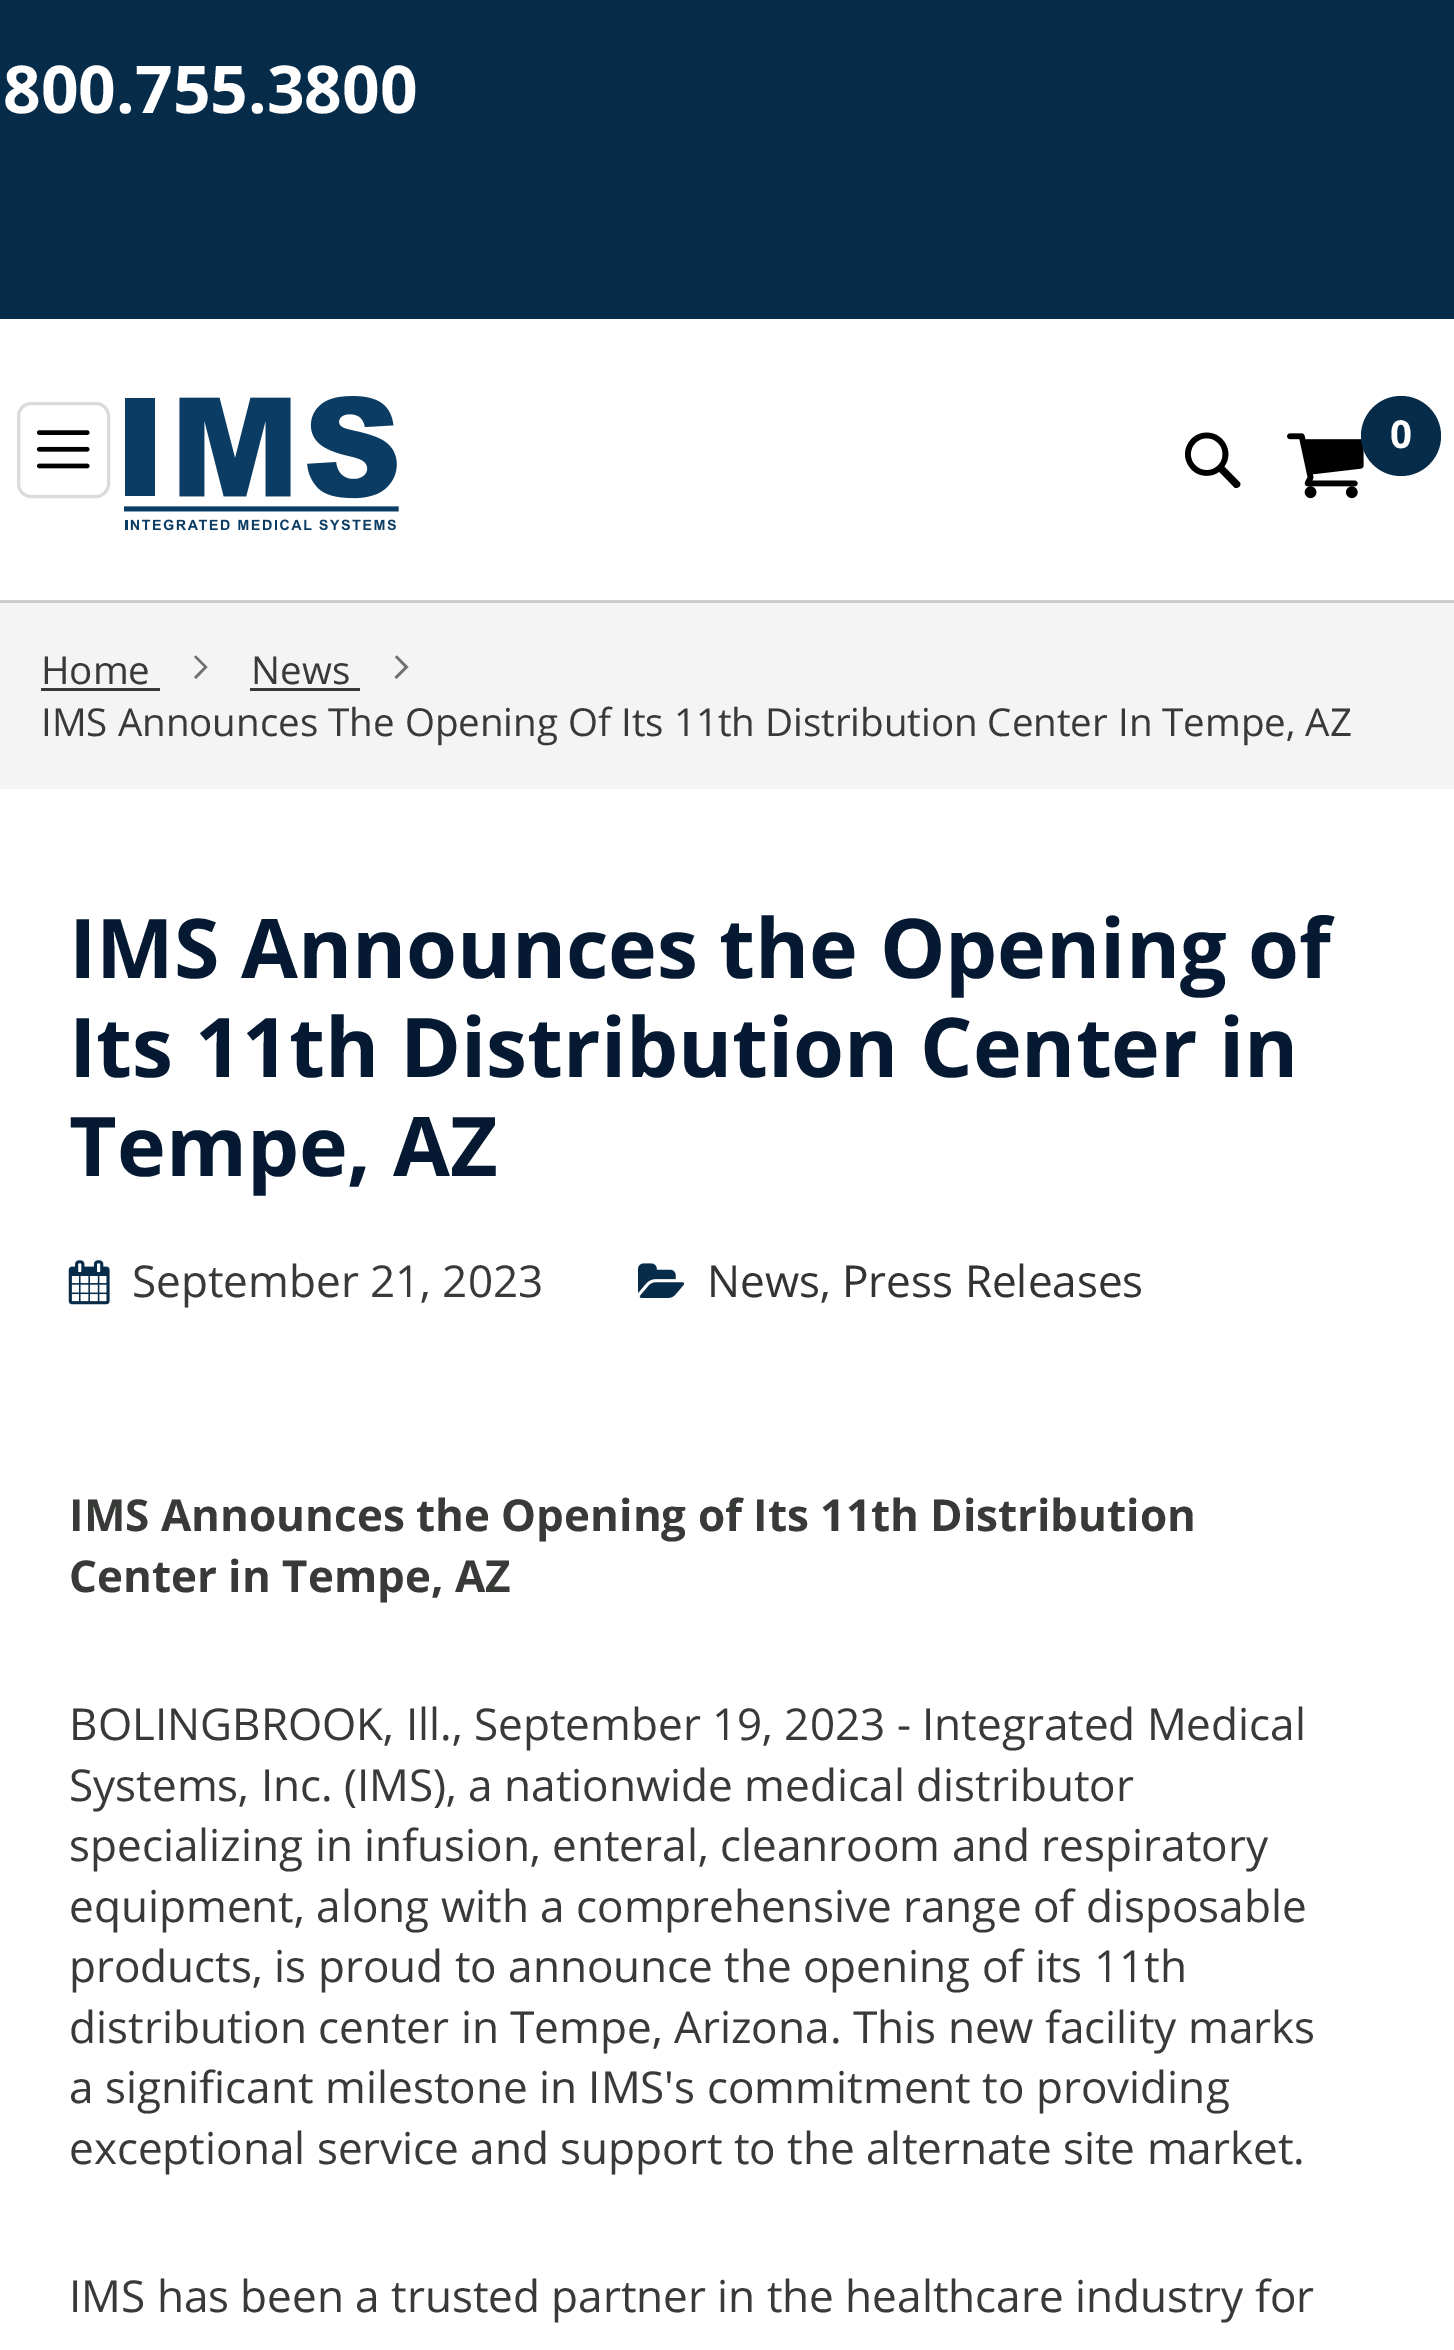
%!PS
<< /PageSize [1454 2350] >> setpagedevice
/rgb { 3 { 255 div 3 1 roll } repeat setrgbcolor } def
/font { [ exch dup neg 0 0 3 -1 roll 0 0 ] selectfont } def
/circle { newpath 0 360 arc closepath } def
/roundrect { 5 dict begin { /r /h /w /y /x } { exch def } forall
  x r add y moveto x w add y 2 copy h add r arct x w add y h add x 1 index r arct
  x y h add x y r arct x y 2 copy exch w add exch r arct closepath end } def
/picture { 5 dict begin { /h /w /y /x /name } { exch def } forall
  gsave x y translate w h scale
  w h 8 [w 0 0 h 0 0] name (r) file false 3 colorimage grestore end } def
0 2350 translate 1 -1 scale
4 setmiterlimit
255 255 255 rgb
0 0 1454 2350 rectfill
204 204 204 rgb
0 600 1454 3 rectfill
7 44 74 rgb
0 0 1454 319 rectfill
219 219 219 rgb
3 setlinewidth
18.5 403.5 90 93 12.5 roundrect stroke
(img/1.rgb) 36 430 54 39 picture
(img/2.rgb) 124 396 275 135 picture
(img/3.rgb) 1185 432 56 57 picture
(img/4.rgb) 1287 433 77 66 picture
7 44 74 rgb
1401 436 40 circle fill
244 244 244 rgb
0 603 1454 186 rectfill
55 58 54 rgb
41 688 119 3 rectfill
112 112 112 rgb
207.5 667 moveto 196 655.5 lineto 194 657 lineto 204 667 lineto 194 677 lineto 196 679 lineto closepath fill
55 58 54 rgb
250 688 110 3 rectfill
112 112 112 rgb
408.5 667 moveto 397 655.5 lineto 395 657 lineto 404.5 667 lineto 394.5 677 lineto 396.5 679 lineto closepath fill
(img/5.rgb) 68 1260 42 45 picture
(img/6.rgb) 638 1263 47 35 picture
/OpenSans-Bold 66 font
255 255 255 rgb
3 113 moveto (800.755.3800) show
/OpenSans-Bold 38.5 font
1390 448 moveto (0) show
/OpenSans-Regular 38.5 font
55 58 54 rgb
[
  [(Home) 41 684]
  [(News) 251 684]
  [(IMS Announces The Opening Of Its 11th Distribution Center In Tempe, AZ) 41 736]
] { aload pop moveto show } forall
/OpenSans-Bold 82.5 font
5 26 50 rgb
[
  [(IMS Announces the Opening of) 69 978]
  [(Its 11th Distribution Center in) 69 1077]
  [(Tempe, AZ) 69 1176]
] { aload pop moveto show } forall
/OpenSans-Regular 44 font
55 58 54 rgb
132 1297 moveto (September 21, 2023) show
51 51 51 rgb
707 1297 moveto (News) show
55 58 54 rgb
820 1297 moveto (,) show
51 51 51 rgb
842 1297 moveto (Press Releases) show
/OpenSans-Bold 44 font
55 58 54 rgb
69 1531 moveto (IMS Announces the Opening of Its 11th Distribution) show
69 1592 moveto (Center in Tempe, AZ) show
/OpenSans-Regular 44 font
[
  [(BOLINGBROOK, Ill., September 19, 2023 - Integrated Medical) 69 1740]
  [(Systems, Inc. \(IMS\), a nationwide medical distributor) 69 1801]
  [(specializing in infusion, enteral, cleanroom and respiratory) 69 1861]
  [(equipment, along with a comprehensive range of disposable) 69 1922]
  [(products, is proud to announce the opening of its 11th) 69 1982]
  [(distribution center in Tempe, Arizona. This new facility marks) 69 2043]
  [(a significant milestone in IMS's commitment to providing) 69 2103]
  [(exceptional service and support to the alternate site market.) 69 2164]
  [(IMS has been a trusted partner in the healthcare industry for) 69 2312]
] { aload pop moveto show } forall
showpage
